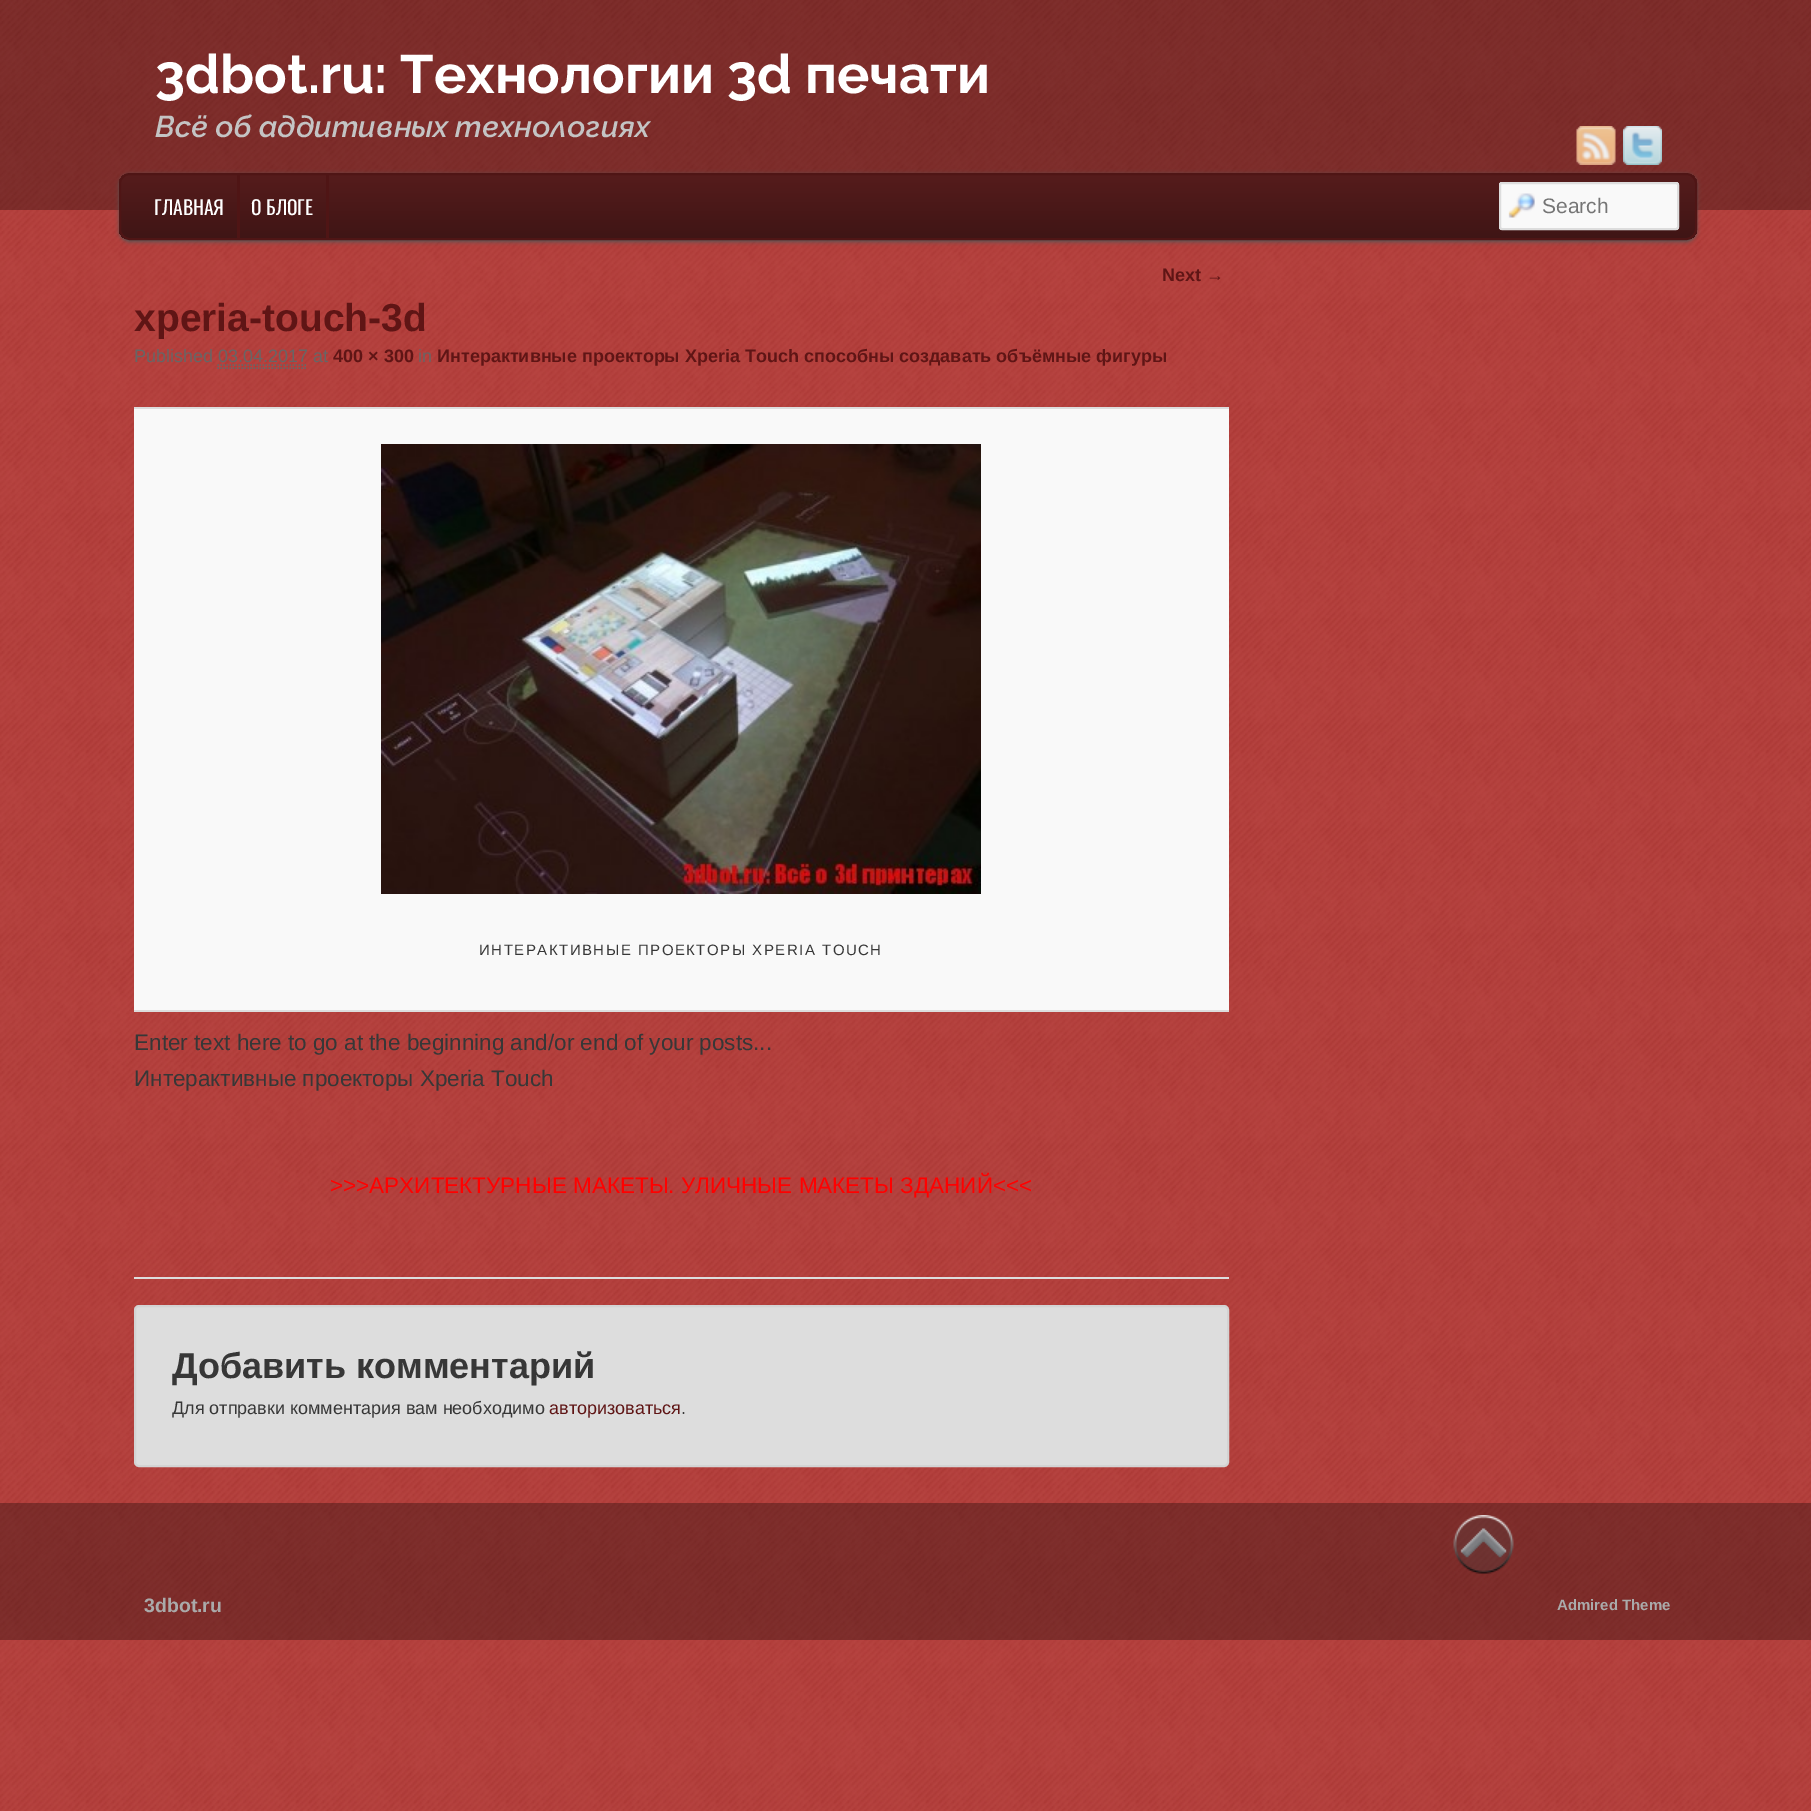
%!PS
<< /PageSize [1811 1811] /PageUsesTransparency true >> setpagedevice
/rgb { 3 { 255 div 3 1 roll } repeat setrgbcolor } def
/font { [ exch dup neg 0 0 3 -1 roll 0 0 ] selectfont } def
/alpha { dup .setfillconstantalpha .setstrokeconstantalpha } def
/roundrect { 5 dict begin { /r /h /w /y /x } { exch def } forall
  x r add y moveto x w add y 2 copy h add r arct x w add y h add x 1 index r arct
  x y h add x y r arct x y 2 copy exch w add exch r arct closepath end } def
/shadow { 12 dict begin { /a /b /q /h /w /y /x } { exch def } forall gsave /was 0 def
  9 -2 -9 { dup b mul 4 div /e exch def 1 sub .425 mul 2.718 exch exp 1 add a .99 .min exch div /now exch def
    1 1 now sub 1 was sub div sub alpha /was now def
    w h .min e 2 mul add 0 gt { x e sub y e sub w e 2 mul add h e 2 mul add
      q e add b .6 mul add w h .min 2 div e add .min 0 .max roundrect fill } if } for grestore end } def
/picture { 5 dict begin { /h /w /y /x /name } { exch def } forall
  gsave x y translate w h scale
  w h 8 [w 0 0 h 0 0] name (r) file false 3 colorimage grestore end } def
0 .pushpdf14devicefilter
0 1811 translate 1 -1 scale
4 setmiterlimit
255 255 255 rgb
0 0 1811 1811 rectfill
(img/1.rgb) 0 0 1811 1811 picture
0.3 alpha
0 0 0 rgb
0 0 1811 210 rectfill
1 alpha
(img/2.rgb) 1576 126 40 39 picture
(img/3.rgb) 1623 126 39 39 picture
85 85 85 rgb
119 174 1578 68 11 2 1 shadow
gsave
119 173 1578 67 11 roundrect clip newpath
gsave 119 174 moveto 1697 174 lineto 1697 239 lineto 119 239 lineto closepath clip newpath
<< /ShadingType 2 /ColorSpace /DeviceRGB /Coords [908 174 908 239] /Extend [true true] /Function << /FunctionType 2 /Domain [0 1] /C0 [0.337 0.11 0.11] /C1 [0.247 0.082 0.082] /N 1 >> >> shfill grestore
grestore
79 21 21 rgb
2 setlinewidth
120 174 1576 65 10 roundrect stroke
237 174 3 65 rectfill
326 174 3 65 rectfill
249 249 249 rgb
1499 182 180 48 3 roundrect fill
(img/4.rgb) 1508 193 27 25 picture
221 221 221 rgb
1500 183 178 46 2 roundrect stroke
134 1277 1095 2 rectfill
102 102 102 rgb
1.5 setlinewidth
[1.5 1.5] 0 setdash
217.5 365 moveto 307.5 365 lineto stroke
217.5 368 moveto 307.5 368 lineto stroke
[
  [134 409 1095 601 249 249 249]
  [134 407 1095 2 221 221 221]
  [134 1010 1095 2 221 221 221]
] { aload pop rgb rectfill } forall
(img/5.rgb) 381 444 600 450 picture
135 1306 1093 160 4 roundrect gsave fill grestore
211 211 211 rgb
2 setlinewidth
[] 0 setdash
stroke
0.3 alpha
0 0 0 rgb
0 1503 1811 137 rectfill
1 alpha
(img/6.rgb) 1453 1515 61 59 picture
/Raleway-Bold 54 font
255 255 255 rgb
155 93 moveto (3dbot.ru: Технологии 3d печати) show
/Raleway-SemiBoldItalic 30 font
196 196 196 rgb
155 137 moveto (Всё об аддитивных технологиях) show
/Oswald-Regular 19.5 font
255 255 255 rgb
154 215 moveto (ГЛАВНАЯ) show
251 215 moveto (О БЛОГЕ) show
/LiberationSans-Regular 21 font
117 117 117 rgb
1542 213 moveto (Search) show
/LiberationSans-Bold 18 font
95 21 21 rgb
1162 281 moveto (Next →) show
/LiberationSans-Bold 39 font
134 331 moveto (xperia-touch-3d) show
/LiberationSans-Regular 18 font
102 102 102 rgb
134 362 moveto (Published 03.04.2017 at) show
/LiberationSans-Bold 18 font
95 21 21 rgb
333 362 moveto (400 × 300) show
/LiberationSans-Regular 18 font
102 102 102 rgb
418 362 moveto (in) show
/LiberationSans-Bold 18 font
95 21 21 rgb
437 362 moveto (Интерактивные проекторы Xperia Touch способны создавать объёмные фигуры) show
/LiberationSans-Regular 15 font
55 55 55 rgb
479 955 moveto 1.5 0 (ИНТЕРАКТИВНЫЕ ПРОЕКТОРЫ XPERIA TOUCH) ashow
/LiberationSans-Regular 22.5 font
134 1050 moveto (Enter text here to go at the beginning and/or end of your posts...) show
134 1086 moveto (Интерактивные проекторы Xperia Touch) show
255 0 0 rgb
330 1193 moveto (>>>АРХИТЕКТУРНЫЕ МАКЕТЫ. УЛИЧНЫЕ МАКЕТЫ ЗДАНИЙ<<<) show
/LiberationSans-Bold 36 font
55 55 55 rgb
172 1378 moveto (Добавить комментарий) show
/LiberationSans-Regular 18 font
172 1414 moveto (Для отправки комментария вам необходимо) show
95 21 21 rgb
549 1414 moveto (авторизоваться) show
55 55 55 rgb
681 1414 moveto (.) show
/LiberationSans-Bold 19.5 font
170 170 170 rgb
144 1612 moveto (3dbot.ru) show
/LiberationSans-Bold 15 font
1557 1610 moveto (Admired Theme) show
.poppdf14devicefilter showpage
